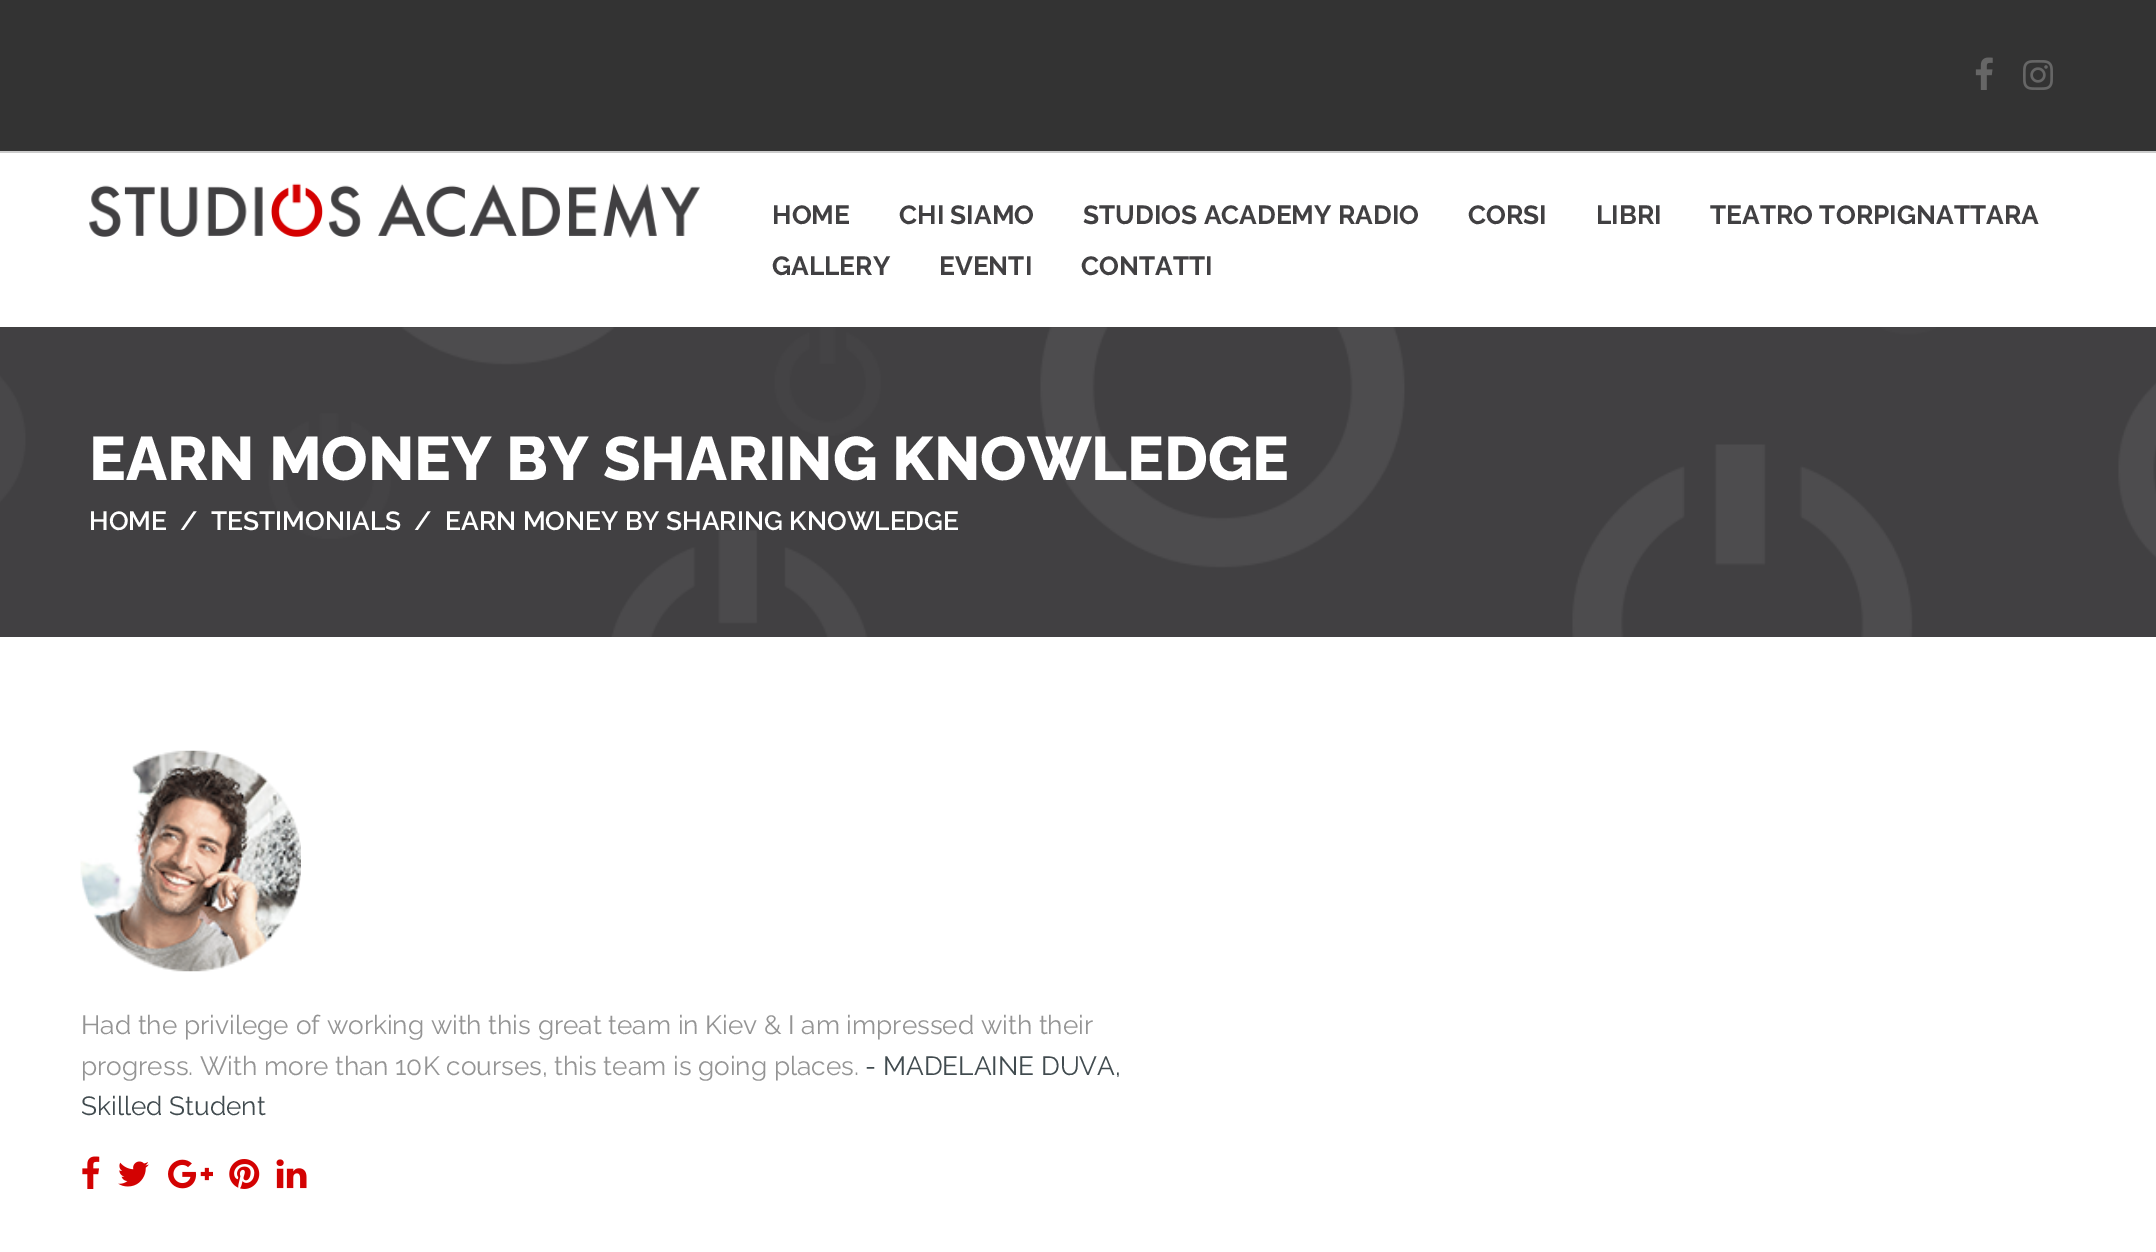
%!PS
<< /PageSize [2156 1252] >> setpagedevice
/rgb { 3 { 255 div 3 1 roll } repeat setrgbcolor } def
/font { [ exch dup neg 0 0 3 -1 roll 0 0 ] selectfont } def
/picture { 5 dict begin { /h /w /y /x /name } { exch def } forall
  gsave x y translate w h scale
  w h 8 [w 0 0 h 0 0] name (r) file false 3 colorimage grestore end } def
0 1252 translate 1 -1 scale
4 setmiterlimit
255 255 255 rgb
0 0 2156 1252 rectfill
51 51 51 rgb
0 0 2156 151 rectfill
204 204 204 rgb
0 151 2156 2 rectfill
(img/1.rgb) 1975 57 18 33 picture
(img/2.rgb) 2023 60 30 30 picture
(img/3.rgb) 89 183 611 55 picture
(img/4.rgb) 0 327 2156 310 picture
(img/5.rgb) 80 750 221 222 picture
(img/6.rgb) 82 1156 18 33 picture
(img/7.rgb) 118 1161 31 26 picture
(img/8.rgb) 168 1159 45 30 picture
(img/9.rgb) 229 1159 31 30 picture
(img/10.rgb) 276 1159 31 30 picture
/Raleway-Bold 26.25 font
65 64 66 rgb
[
  [(HOME) 772 224]
  [(CHI SIAMO) 899 224]
  [(STUDIOS ACADEMY RADIO) 1083 224]
  [(CORSI) 1468 224]
  [(LIBRI) 1596 224]
  [(TEATRO TORPIGNATTARA) 1710 224]
  [(GALLERY) 772 275]
  [(EVENTI) 939 275]
  [(CONTATTI) 1081 275]
] { aload pop moveto show } forall
/Raleway-ExtraBold 61.25 font
255 255 255 rgb
89 480 moveto (EARN MONEY BY SHARING KNOWLEDGE) show
/Raleway-SemiBold 26.25 font
[
  [(HOME) 89 530]
  [(/) 180 530]
  [(TESTIMONIALS) 211 530]
  [(/) 414 530]
  [(EARN MONEY BY SHARING KNOWLEDGE) 445 530]
] { aload pop moveto show } forall
/Raleway-Regular 26.25 font
148 148 148 rgb
81 1034 moveto (Had the privilege of working with this great team in Kiev & I am impressed with their) show
81 1075 moveto (progress. With more than 10K courses, this team is going places.) show
65 75 79 rgb
865 1075 moveto (- MADELAINE DUVA,) show
81 1115 moveto (Skilled Student) show
showpage
